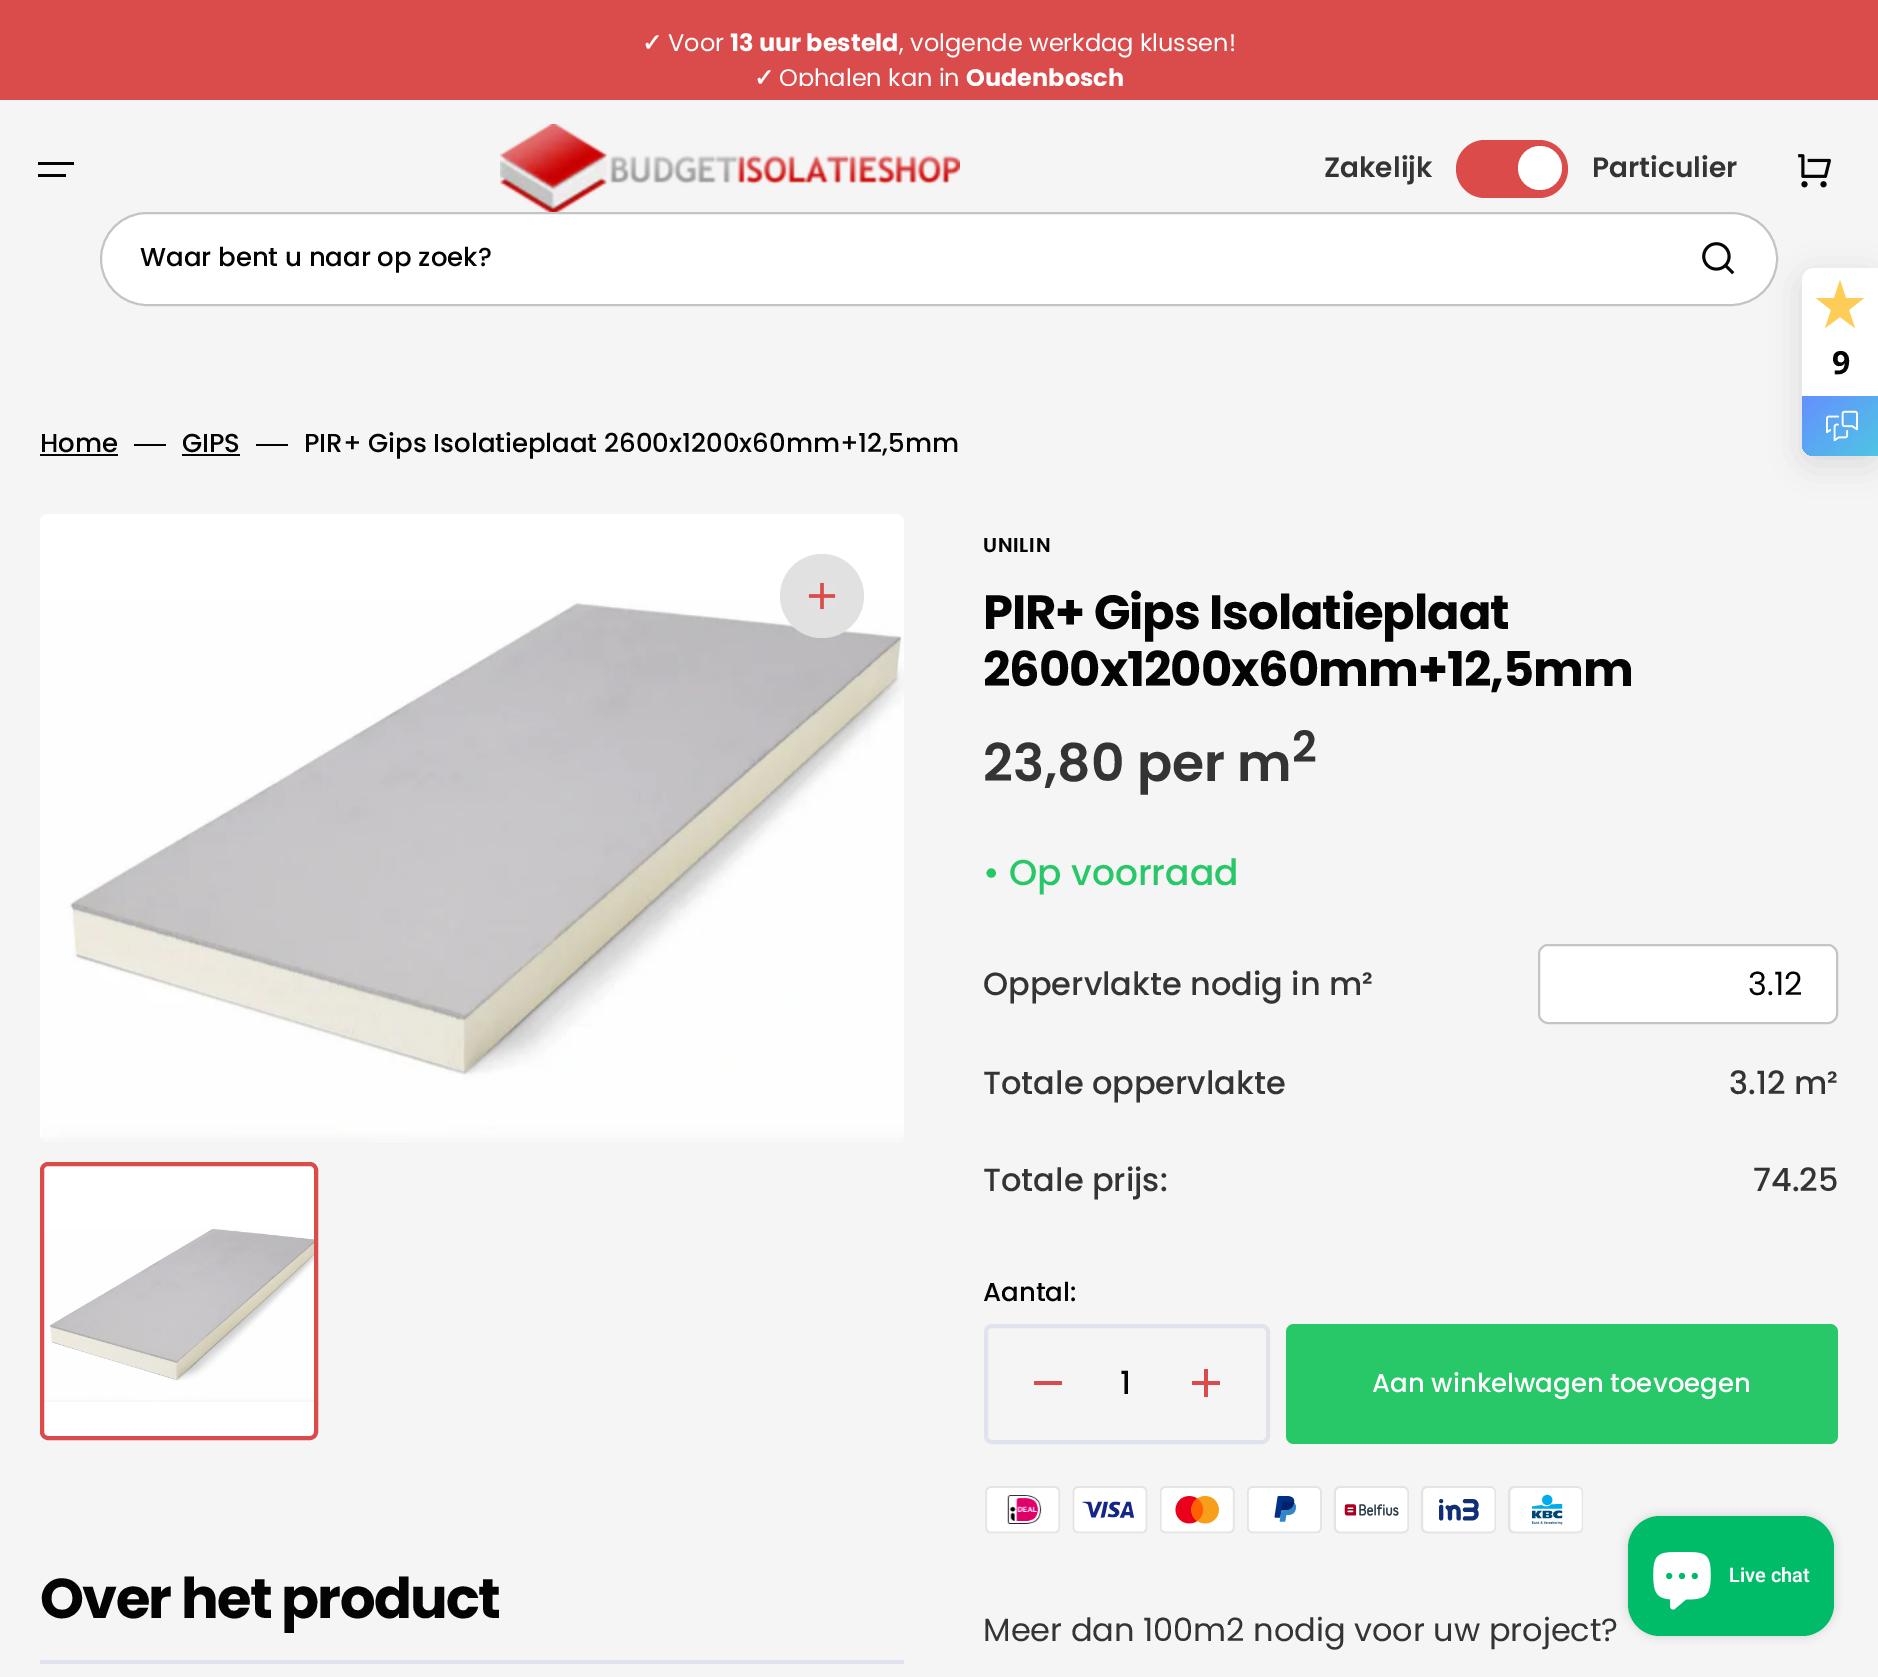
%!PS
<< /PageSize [1878 1677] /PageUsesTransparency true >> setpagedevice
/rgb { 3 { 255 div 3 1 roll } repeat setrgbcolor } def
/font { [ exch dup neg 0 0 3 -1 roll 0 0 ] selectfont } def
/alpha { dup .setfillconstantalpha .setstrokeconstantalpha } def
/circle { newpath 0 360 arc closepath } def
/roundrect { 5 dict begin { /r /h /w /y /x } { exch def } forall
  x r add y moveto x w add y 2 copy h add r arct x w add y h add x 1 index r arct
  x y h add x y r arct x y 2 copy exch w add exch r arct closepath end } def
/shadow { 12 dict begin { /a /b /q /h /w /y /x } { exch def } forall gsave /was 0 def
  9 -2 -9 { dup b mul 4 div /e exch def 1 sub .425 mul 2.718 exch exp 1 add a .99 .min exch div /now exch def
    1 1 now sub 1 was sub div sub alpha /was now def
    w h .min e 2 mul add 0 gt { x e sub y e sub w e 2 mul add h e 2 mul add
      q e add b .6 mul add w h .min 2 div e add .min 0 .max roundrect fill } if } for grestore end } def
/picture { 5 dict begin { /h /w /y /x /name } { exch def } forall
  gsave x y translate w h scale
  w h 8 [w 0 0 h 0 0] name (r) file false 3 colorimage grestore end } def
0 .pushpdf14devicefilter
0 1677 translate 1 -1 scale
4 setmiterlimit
245 245 245 rgb
0 0 1878 1677 rectfill
[
  [0 0 1878 100 218 75 75]
  [38 162 36 3 4 4 4]
  [38 174 28 3 4 4 4]
] { aload pop rgb rectfill } forall
(img/1.rgb) 500 124 460 88 picture
218 75 74 rgb
1456 140 112 58 29 roundrect fill
255 255 255 rgb
1540 168 22 circle fill
(img/2.rgb) 1798 154 33 34 picture
101 213 1676 92 46 roundrect gsave fill grestore
196 196 196 rgb
2 setlinewidth
stroke
(img/3.rgb) 1702 242 33 33 picture
30 30 30 rgb
1802 276 76 188 12 16 0.12 shadow
255 255 255 rgb
1814 268 moveto 1878 268 lineto 1878 456 lineto 1814 456 lineto 1807.5 456 1802 450.5 1802 444 curveto 1802 280 lineto 1802 273.5 1807.5 268 1814 268 curveto closepath fill
254 205 88 rgb
1855 328 moveto 1849 310 lineto 1864 298 lineto 1846 298 lineto 1840 280 lineto 1834 298 lineto 1816 298 lineto 1831 310 lineto 1825 328 lineto 1840 317 lineto closepath fill
gsave 1802 396 moveto 1878 396 lineto 1878 456 lineto 1814 456 lineto 1807.5 456 1802 450.5 1802 444 curveto closepath clip newpath
<< /ShadingType 2 /ColorSpace /DeviceRGB /Coords [1808 391 1872 461] /Extend [true true] /Function << /FunctionType 2 /Domain [0 1] /C0 [0.396 0.565 1] /C1 [0.306 0.773 0.894] /N 1 >> >> shfill grestore
(img/4.rgb) 1826 410 32 32 picture
[
  [40 454 78 2 4 4 4]
  [134 444 32 2 4 4 4]
  [182 454 58 2 4 4 4]
  [256 444 32 2 4 4 4]
] { aload pop rgb rectfill } forall
255 255 255 rgb
40 514 864 628 8 roundrect fill
(img/5.rgb) 41 600 863 542 picture
245 245 245 rgb
822 596 42 circle fill
0.1 alpha
52 52 52 rgb
822 554 moveto 845 554 864 573 864 596 curveto 864 619 845 638 822 638 curveto 799 638 780 619 780 596 curveto 780 573 799 554 822 554 curveto closepath fill
1 alpha
(img/6.rgb) 808 582 28 28 picture
255 255 255 rgb
40 1162 278 278 rectfill
(img/7.rgb) 44 1228 270 174 picture
218 75 75 rgb
4 setlinewidth
42 1164 274 274 6 roundrect stroke
224 227 238 rgb
40 1660 864 4 rectfill
255 255 255 rgb
1539 945 298 78 9 roundrect gsave fill grestore
196 196 196 rgb
2 setlinewidth
stroke
224 227 238 rgb
4 setlinewidth
986 1326 282 116 6 roundrect stroke
218 75 75 rgb
1046 1381 moveto 1062 1381 lineto 1062 1385 lineto 1034 1385 lineto 1034 1381 lineto closepath fill
(img/8.rgb) 1192 1369 28 28 picture
40 199 104 rgb
1286 1324 552 120 8 roundrect fill
(img/9.rgb) 985 1486 598 48 picture
0 0 0 rgb
1628 1516 206 120 32 5 0.15 shadow
0 188 104 rgb
1628 1516 206 120 32 roundrect fill
(img/10.rgb) 1653 1552 58 58 picture
/DejaVuSans-Bold 24 font
255 255 255 rgb
642 51 moveto (✓) show
/Poppins-Regular 24 font
668 51 moveto (Voor) show
/Poppins-Bold 24 font
730 51 moveto (13 uur besteld) show
/Poppins-Regular 24 font
899 51 moveto (, volgende werkdag klussen!) show
/DejaVuSans-Bold 24 font
754 86 moveto (✓) show
gsave
0 26 1878 60 rectclip
/Poppins-Regular 24 font
779 86 moveto (Ophalen kan in) show
/Poppins-Bold 24 font
966 86 moveto (Oudenbosch) show
grestore
/Poppins-SemiBold 28 font
52 52 52 rgb
1324 177 moveto (Zakelijk) show
1592 177 moveto (Particulier) show
/poppins-Medium 26 font
4 4 4 rgb
140 266 moveto (Waar bent u naar op zoek?) show
/OpenSans-Bold 32 font
1832 374 moveto -1 0 (9) ashow
/poppins-Medium 26 font
[
  [(Home) 40 452]
  [(GIPS) 182 452]
  [(PIR+ Gips Isolatieplaat 2600x1200x60mm+12,5mm) 304 452]
] { aload pop moveto show } forall
/Poppins-Bold 56 font
40 1618 moveto -1.7 0 (Over het product) ashow
/Poppins-SemiBold 20 font
983 552 moveto 0.75 0 (UNILIN) ashow
/Poppins-Bold 48 font
983 629 moveto -1 0 (PIR+ Gips Isolatieplaat) ashow
983 686 moveto -1 0 (2600x1200x60mm+12,5mm) ashow
/Poppins-SemiBold 52 font
52 52 52 rgb
983 781 moveto (23,80 per m) show
/Poppins-SemiBold 43 font
1292 762 moveto (2) show
/poppins-Medium 36 font
40 199 104 rgb
983 885 moveto (• Op voorraad) show
/poppins-Medium 32 font
52 52 52 rgb
983 995 moveto (Oppervlakte nodig in m²) show
/Poppins-Regular 32 font
4 4 4 rgb
1748 995 moveto (3.12) show
/poppins-Medium 32 font
52 52 52 rgb
[
  [(Totale oppervlakte) 983 1094]
  [(3.12 m²) 1729 1094]
  [(Totale prijs:) 983 1191]
  [(74.25) 1753 1191]
] { aload pop moveto show } forall
/poppins-Medium 26 font
4 4 4 rgb
983 1301 moveto (Aantal:) show
/poppins-Medium 32 font
1120 1394 moveto (1) show
/poppins-Medium 26 font
255 255 255 rgb
1372 1392 moveto (Aan winkelwagen toevoegen) show
/Poppins-Regular 32 font
52 52 52 rgb
983 1641 moveto (Meer dan 100m2 nodig voor uw project?) show
/Roboto-SemiBold 20 font
255 255 255 rgb
1729 1582 moveto (Live chat) show
.poppdf14devicefilter showpage
